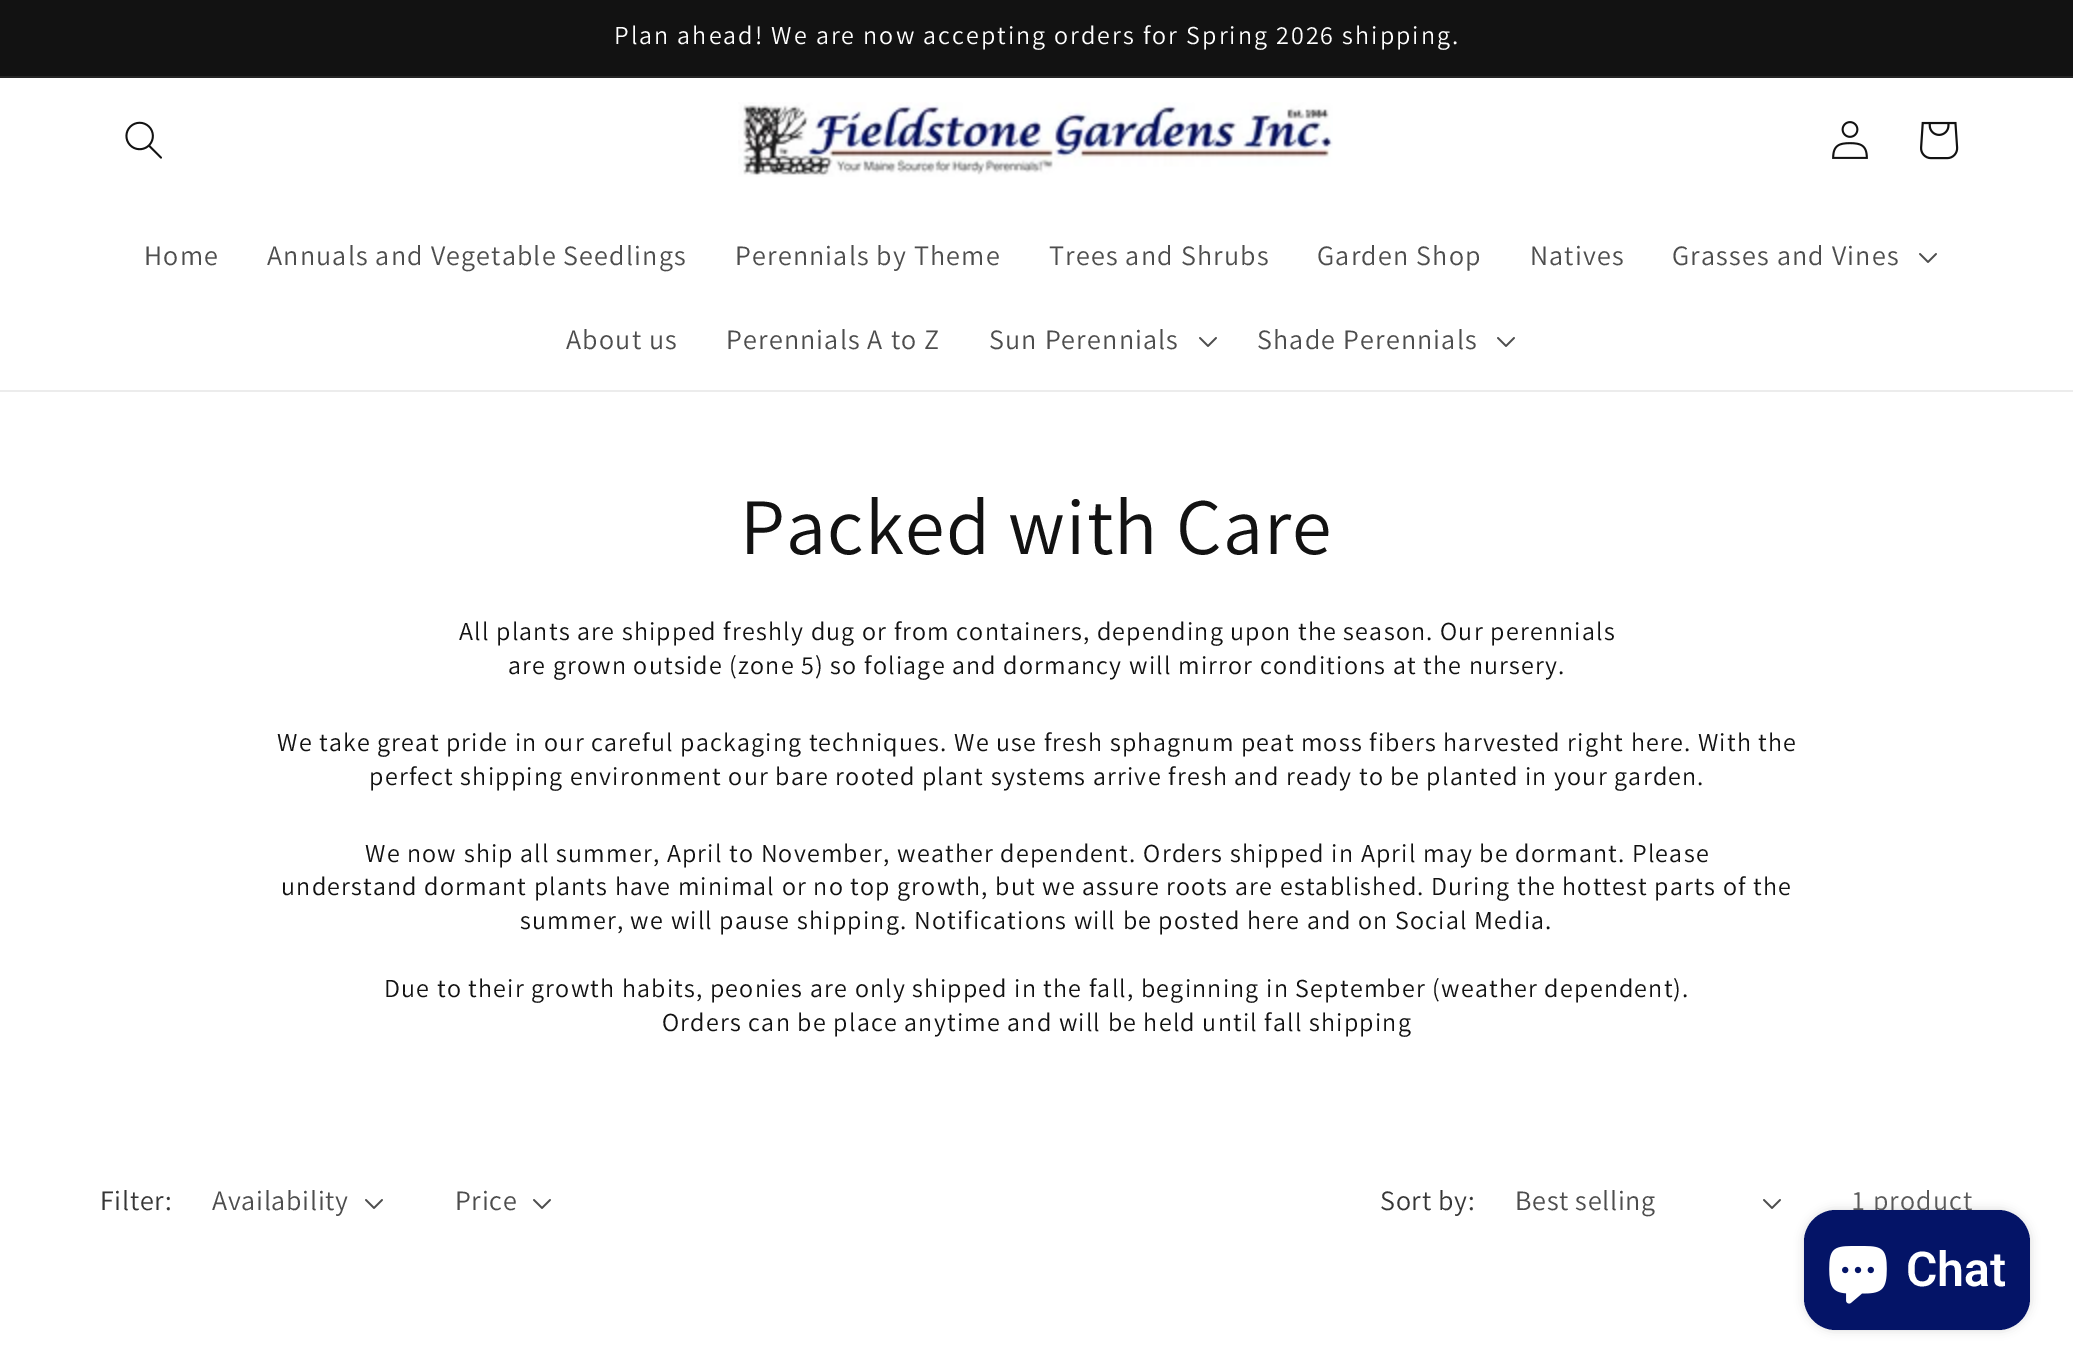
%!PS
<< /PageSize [2073 1372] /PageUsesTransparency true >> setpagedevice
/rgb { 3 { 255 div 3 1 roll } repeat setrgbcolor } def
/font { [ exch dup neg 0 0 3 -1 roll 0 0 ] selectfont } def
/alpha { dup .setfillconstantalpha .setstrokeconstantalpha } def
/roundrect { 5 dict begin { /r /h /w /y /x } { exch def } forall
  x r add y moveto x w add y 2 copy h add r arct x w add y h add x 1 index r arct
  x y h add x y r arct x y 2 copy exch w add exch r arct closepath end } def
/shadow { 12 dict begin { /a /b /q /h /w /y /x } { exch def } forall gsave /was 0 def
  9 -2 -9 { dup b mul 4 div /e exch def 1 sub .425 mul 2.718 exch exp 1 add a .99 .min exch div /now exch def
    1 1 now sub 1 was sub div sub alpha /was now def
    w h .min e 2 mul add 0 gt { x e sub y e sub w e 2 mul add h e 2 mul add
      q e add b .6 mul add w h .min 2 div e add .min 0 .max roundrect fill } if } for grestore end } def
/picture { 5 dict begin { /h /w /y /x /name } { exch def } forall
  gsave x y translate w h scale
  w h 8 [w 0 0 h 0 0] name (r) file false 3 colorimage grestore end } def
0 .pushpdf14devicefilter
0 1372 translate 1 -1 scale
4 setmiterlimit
255 255 255 rgb
0 0 2073 1372 rectfill
[
  [0 0 2073 76 18 18 18]
  [0 76 2073 2 37 37 37]
  [0 390 2073 2 236 236 236]
] { aload pop rgb rectfill } forall
(img/1.rgb) 125 121 37 38 picture
(img/2.rgb) 738 102 595 75 picture
(img/3.rgb) 1832 121 36 38 picture
(img/4.rgb) 1920 121 39 39 picture
(img/5.rgb) 1919 253 18 10 picture
(img/5.rgb) 1199 337 18 10 picture
(img/5.rgb) 1497 337 18 10 picture
(img/5.rgb) 365 1199 18 10 picture
(img/5.rgb) 533 1199 18 10 picture
(img/5.rgb) 1763 1199 18 10 picture
0 0 0 rgb
1804 1210 226 120 32 5 0.15 shadow
/Assistant-Regular 26 font
255 255 255 rgb
614 44 moveto 2 0 (Plan ahead! We are now accepting orders for Spring 2026 shipping.) ashow
/Assistant-Regular 28 font
77 77 77 rgb
144 265 moveto 1.2 0 (Home) ashow
267 265 moveto 1.2 0 (Annuals and Vegetable Seedlings) ashow
735 265 moveto 1.2 0 (Perennials by Theme) ashow
1049 265 moveto 1.2 0 (Trees and Shrubs) ashow
1317 265 moveto 1.2 0 (Garden Shop) ashow
1530 265 moveto 1.2 0 (Natives) ashow
1672 265 moveto 1.2 0 (Grasses and Vines) ashow
566 349 moveto 1.2 0 (About us) ashow
726 349 moveto 1.2 0 (Perennials A to Z) ashow
989 349 moveto 1.2 0 (Sun Perennials) ashow
1257 349 moveto 1.2 0 (Shade Perennials) ashow
/Assistant-Regular 80 font
18 18 18 rgb
740 554 moveto 1.2 0 (Packed with Care) ashow
/Assistant-Regular 26 font
459 640 moveto 1.2 0 (All plants are shipped freshly dug or from containers, depending upon the season. Our perennials) ashow
508 674 moveto 1.2 0 (are grown outside \(zone 5\) so foliage and dormancy will mirror conditions at the nursery.) ashow
277 751 moveto 1.2 0 (We take great pride in our careful packaging techniques. We use fresh sphagnum peat moss fibers harvested right here. With the) ashow
369 785 moveto 1.2 0 (perfect shipping environment our bare rooted plant systems arrive fresh and ready to be planted in your garden.) ashow
365 862 moveto 1.2 0 (We now ship all summer, April to November, weather dependent. Orders shipped in April may be dormant. Please) ashow
281 895 moveto 1.2 0 (understand dormant plants have minimal or no top growth, but we assure roots are established. During the hottest parts of the) ashow
520 929 moveto 1.2 0 (summer, we will pause shipping. Notifications will be posted here and on Social Media.) ashow
384 997 moveto 1.2 0 (Due to their growth habits, peonies are only shipped in the fall, beginning in September \(weather dependent\).) ashow
662 1031 moveto 1.2 0 (Orders can be place anytime and will be held until fall shipping) ashow
/Assistant-Regular 28 font
54 54 54 rgb
100 1210 moveto 0.75 0 (Filter:) ashow
77 77 77 rgb
212 1210 moveto 0.75 0 (Availability) ashow
455 1210 moveto 0.75 0 (Price) ashow
54 54 54 rgb
1380 1210 moveto 0.75 0 (Sort by:) ashow
77 77 77 rgb
1515 1210 moveto 0.75 0 (Best selling) ashow
89 89 89 rgb
1852 1210 moveto 1.2 0 (1 product) ashow
4 20 103 rgb
1804 1210 226 120 32 roundrect fill
(img/6.rgb) 1829 1246 58 58 picture
/Roboto-SemiBold 48 font
255 255 255 rgb
1906 1286 moveto (Chat) show
.poppdf14devicefilter showpage
